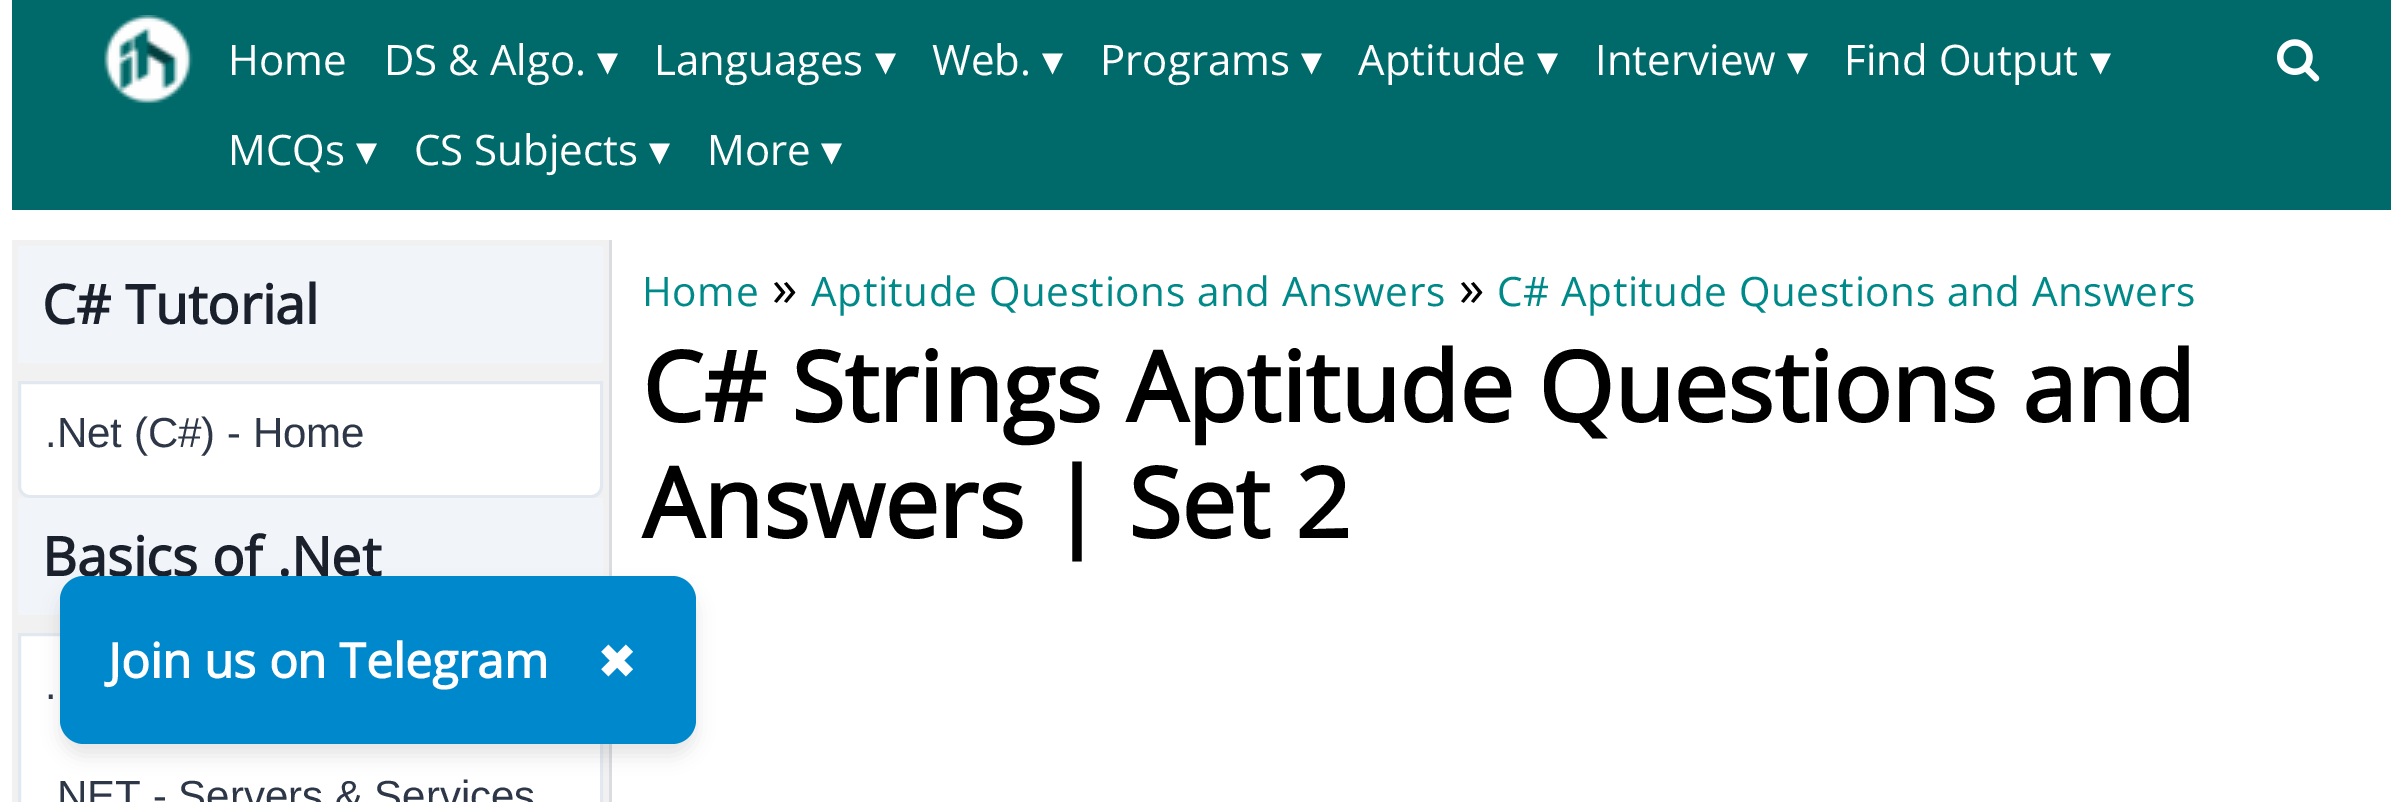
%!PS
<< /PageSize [2402 802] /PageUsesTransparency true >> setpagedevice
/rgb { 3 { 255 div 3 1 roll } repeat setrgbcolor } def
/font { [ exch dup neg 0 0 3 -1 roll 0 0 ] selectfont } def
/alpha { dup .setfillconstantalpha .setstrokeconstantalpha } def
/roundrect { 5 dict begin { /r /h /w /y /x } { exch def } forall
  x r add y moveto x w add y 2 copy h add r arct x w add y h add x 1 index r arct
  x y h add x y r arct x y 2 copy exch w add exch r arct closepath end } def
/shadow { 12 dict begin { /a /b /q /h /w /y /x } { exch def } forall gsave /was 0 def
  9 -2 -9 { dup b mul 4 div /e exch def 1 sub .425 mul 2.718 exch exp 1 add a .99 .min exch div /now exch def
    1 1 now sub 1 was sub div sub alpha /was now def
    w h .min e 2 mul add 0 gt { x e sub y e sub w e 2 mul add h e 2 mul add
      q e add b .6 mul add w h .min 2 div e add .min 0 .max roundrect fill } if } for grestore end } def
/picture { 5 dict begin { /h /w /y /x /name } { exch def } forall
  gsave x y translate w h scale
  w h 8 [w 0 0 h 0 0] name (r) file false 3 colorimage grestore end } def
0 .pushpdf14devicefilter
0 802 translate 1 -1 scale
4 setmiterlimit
255 255 255 rgb
0 0 2402 802 rectfill
0 105 105 rgb
12 0 2379 210 rectfill
(img/1.rgb) 104 15 89 90 picture
(img/2.rgb) 2277 39 43 43 picture
[
  [12 240 597 562 241 241 241]
  [609 240 3 562 218 220 224]
  [18 246 585 117 241 245 249]
] { aload pop rgb rectfill } forall
255 255 255 rgb
19.5 382.5 moveto 601.5 382.5 lineto 601.5 486 lineto 601.5 492 597 496.5 591 496.5 curveto 30 496.5 lineto 24 496.5 19.5 492 19.5 486 curveto closepath gsave fill grestore
226 232 240 rgb
3 setlinewidth
stroke
241 245 249 rgb
18 498 585 117 rectfill
255 255 255 rgb
19.5 634.5 moveto 601.5 634.5 lineto 601.5 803.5 lineto 19.5 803.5 lineto closepath gsave fill grestore
226 232 240 rgb
stroke
0 0 0 rgb
60 588 636 168 24 9 0.1 shadow
/OpenSans-Regular 42 font
255 255 255 rgb
228 75 moveto (Home) show
384 75 moveto (DS & Algo.) show
/DejaVuSans-Regular 42 font
597 75 moveto (▾) show
/OpenSans-Regular 42 font
654 75 moveto (Languages) show
/DejaVuSans-Regular 42 font
875 75 moveto (▾) show
/OpenSans-Regular 42 font
932 75 moveto (Web.) show
/DejaVuSans-Regular 42 font
1042 75 moveto (▾) show
/OpenSans-Regular 42 font
1100 75 moveto (Programs) show
/DejaVuSans-Regular 42 font
1301 75 moveto (▾) show
/OpenSans-Regular 42 font
1358 75 moveto (Aptitude) show
/DejaVuSans-Regular 42 font
1537 75 moveto (▾) show
/OpenSans-Regular 42 font
1595 75 moveto (Interview) show
/DejaVuSans-Regular 42 font
1787 75 moveto (▾) show
/OpenSans-Regular 42 font
1844 75 moveto (Find Output) show
/DejaVuSans-Regular 42 font
2090 75 moveto (▾) show
/OpenSans-Regular 42 font
228 165 moveto (MCQs) show
/DejaVuSans-Regular 42 font
356 165 moveto (▾) show
/OpenSans-Regular 42 font
414 165 moveto (CS Subjects) show
/DejaVuSans-Regular 42 font
649 165 moveto (▾) show
/OpenSans-Regular 42 font
707 165 moveto (More) show
/DejaVuSans-Regular 42 font
821 165 moveto (▾) show
/OpenSans-Bold 54 font
26 32 44 rgb
42 324 moveto (C# Tutorial) show
/LiberationSans-Regular 42 font
45 55 72 rgb
45 447 moveto (.Net \(C#\) - Home) show
/OpenSans-Bold 54 font
26 32 44 rgb
42 576 moveto (Basics of .Net) show
/LiberationSans-Regular 42 font
45 55 72 rgb
45 699 moveto (.) show
57 810 moveto (NET - Servers & Services) show
/OpenSans-Regular 40.5 font
0 137 137 rgb
642 306 moveto 0.6 0 (Home) ashow
/OpenSans-Regular 51 font
0 0 0 rgb
772 306 moveto (») show
/OpenSans-Regular 40.5 font
0 137 137 rgb
811 306 moveto 0.6 0 (Aptitude Questions and Answers) ashow
/OpenSans-Regular 51 font
0 0 0 rgb
1459 306 moveto (») show
/OpenSans-Regular 40.5 font
0 137 137 rgb
1497 306 moveto 0.6 0 (C# Aptitude Questions and Answers) ashow
/OpenSans-Bold 96.9 font
0 0 0 rgb
642 422 moveto (C# Strings Aptitude Questions and) show
642 538 moveto (Answers | Set 2) show
0 136 204 rgb
60 576 636 168 24 roundrect fill
/OpenSans-Bold 48 font
255 255 255 rgb
108 678 moveto (Join us on Telegram) show
/DejaVuSans-Regular 48 font
597 678 moveto (✖) show
.poppdf14devicefilter showpage
